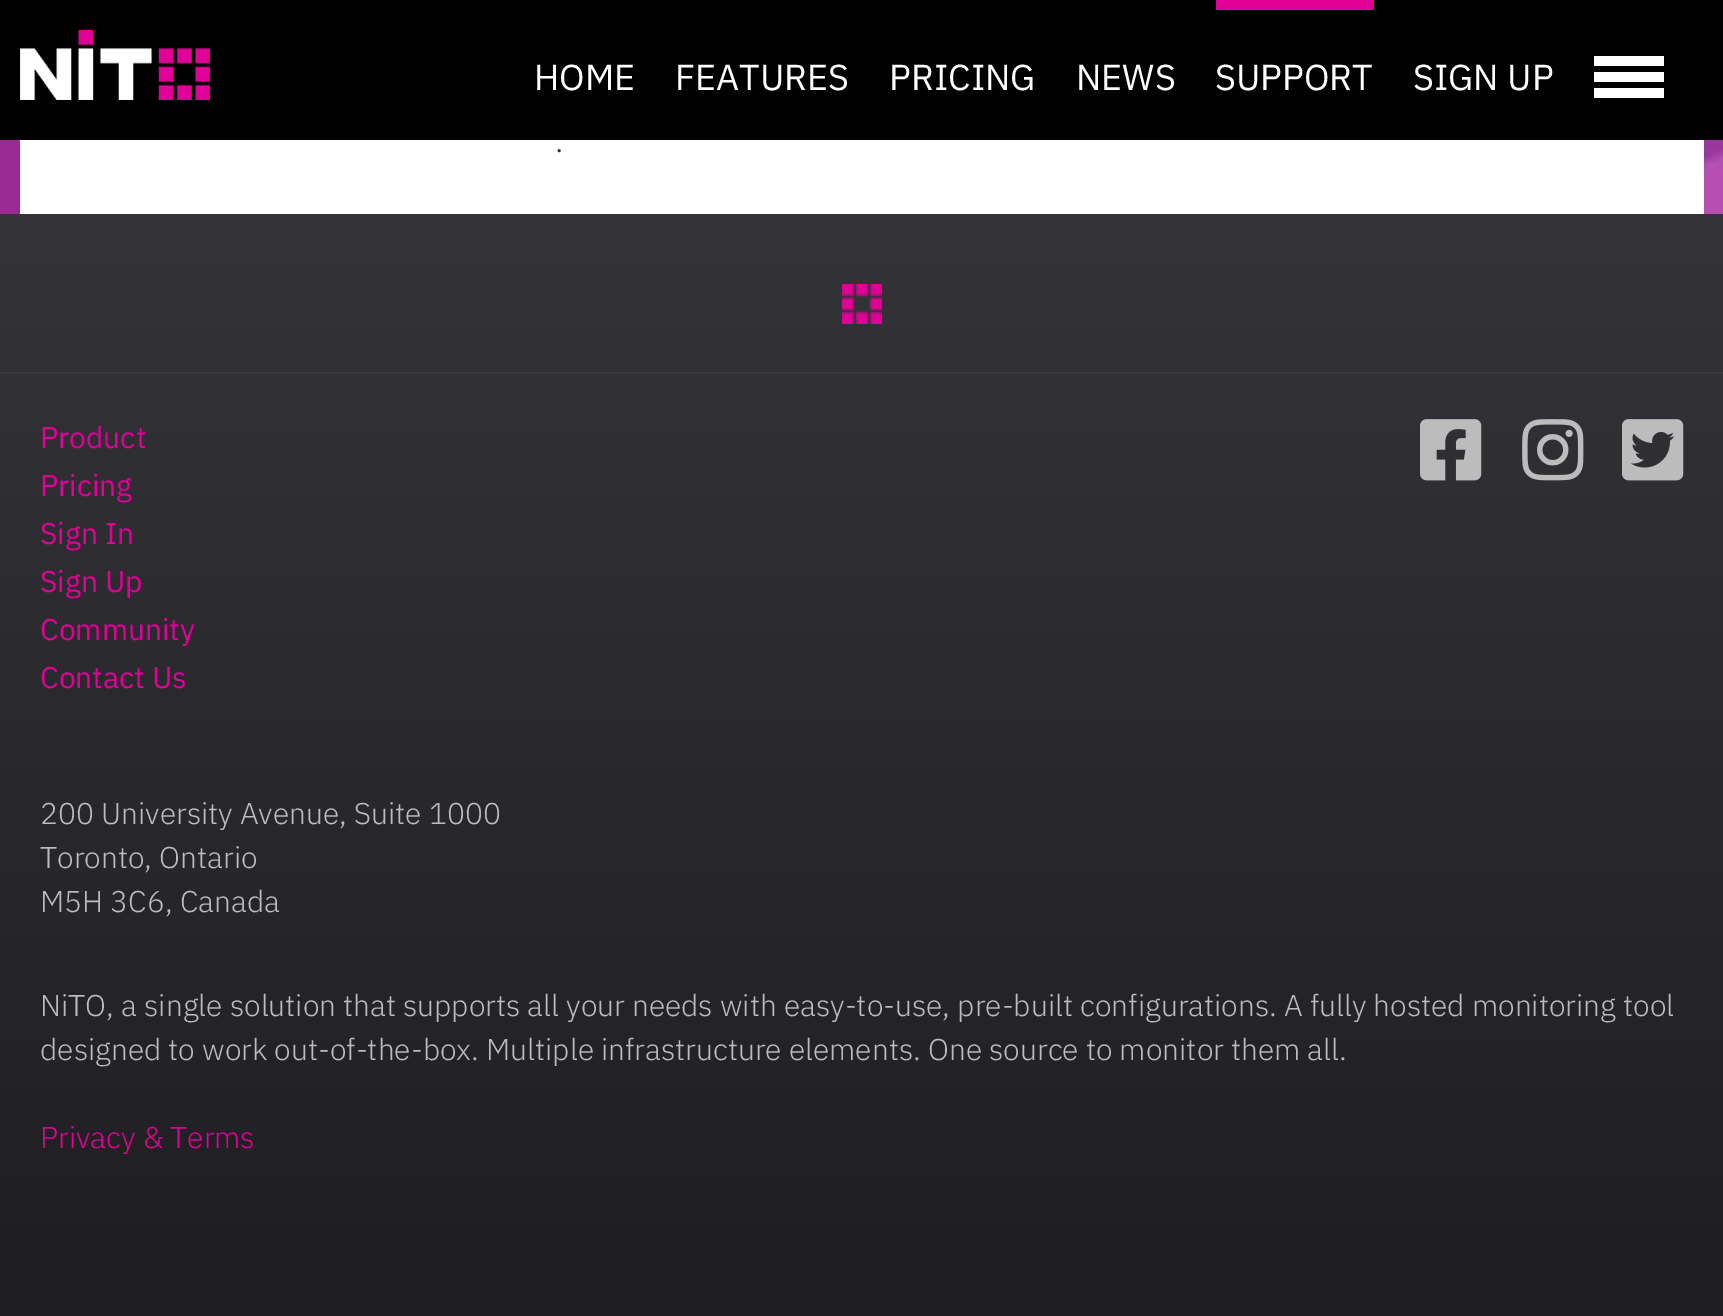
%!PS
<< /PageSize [1723 1316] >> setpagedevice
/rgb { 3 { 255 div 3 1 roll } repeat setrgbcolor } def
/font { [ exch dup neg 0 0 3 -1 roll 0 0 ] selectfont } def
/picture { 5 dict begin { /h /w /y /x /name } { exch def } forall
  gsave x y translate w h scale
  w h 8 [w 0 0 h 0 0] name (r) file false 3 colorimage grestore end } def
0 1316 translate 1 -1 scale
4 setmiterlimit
255 255 255 rgb
0 0 1723 1316 rectfill
0 0 0 rgb
0 0 1723 140 rectfill
(img/1.rgb) 20 30 190 70 picture
[
  [1216 0 158 10 224 0 151]
  [1594 56 70 10 255 255 255]
  [1594 72 70 10 255 255 255]
  [1594 88 70 10 255 255 255]
] { aload pop rgb rectfill } forall
(img/2.rgb) 0 140 1723 74 picture
20 140 1684 74 rectfill
gsave 0 214 moveto 1723 214 lineto 1723 1316 lineto 0 1316 lineto closepath clip newpath
<< /ShadingType 2 /ColorSpace /DeviceRGB /Coords [862 214 862 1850] /Extend [true true] /Function << /FunctionType 2 /Domain [0 1] /C0 [0.204 0.2 0.216] /C1 [0.078 0.075 0.09] /N 1 >> >> shfill grestore
(img/3.rgb) 842 284 40 40 picture
56 56 58 rgb
0 372 1723 2 rectfill
(img/4.rgb) 1420 419 62 62 picture
(img/5.rgb) 1522 419 62 62 picture
(img/6.rgb) 1622 419 62 62 picture
/IBMPlexSans-Regular 36 font
255 255 255 rgb
[
  [(HOME) 534 90]
  [(FEATURES) 675 90]
  [(PRICING) 889 90]
  [(NEWS) 1076 90]
  [(SUPPORT) 1215 90]
  [(SIGN UP) 1413 90]
] { aload pop moveto show } forall
/IBMPlexSans-Light 32 font
51 51 51 rgb
555 152 moveto (.) show
/IBMPlexSans-Regular 30 font
225 0 152 rgb
[
  [(Product) 40 448]
  [(Pricing) 40 496]
  [(Sign In) 40 544]
  [(Sign Up) 40 592]
  [(Community) 40 640]
  [(Contact Us) 40 688]
] { aload pop moveto show } forall
/IBMPlexSans-Light 30 font
188 188 189 rgb
[
  [(200 University Avenue, Suite 1000) 40 824]
  [(Toronto, Ontario) 40 868]
  [(M5H 3C6, Canada) 40 912]
  [(NiTO, a single solution that supports all your needs with easy-to-use, pre-built configurations. A fully hosted monitoring tool) 40 1016]
  [(designed to work out-of-the-box. Multiple infrastructure elements. One source to monitor them all.) 40 1060]
] { aload pop moveto show } forall
225 0 152 rgb
40 1148 moveto (Privacy & Terms) show
showpage
